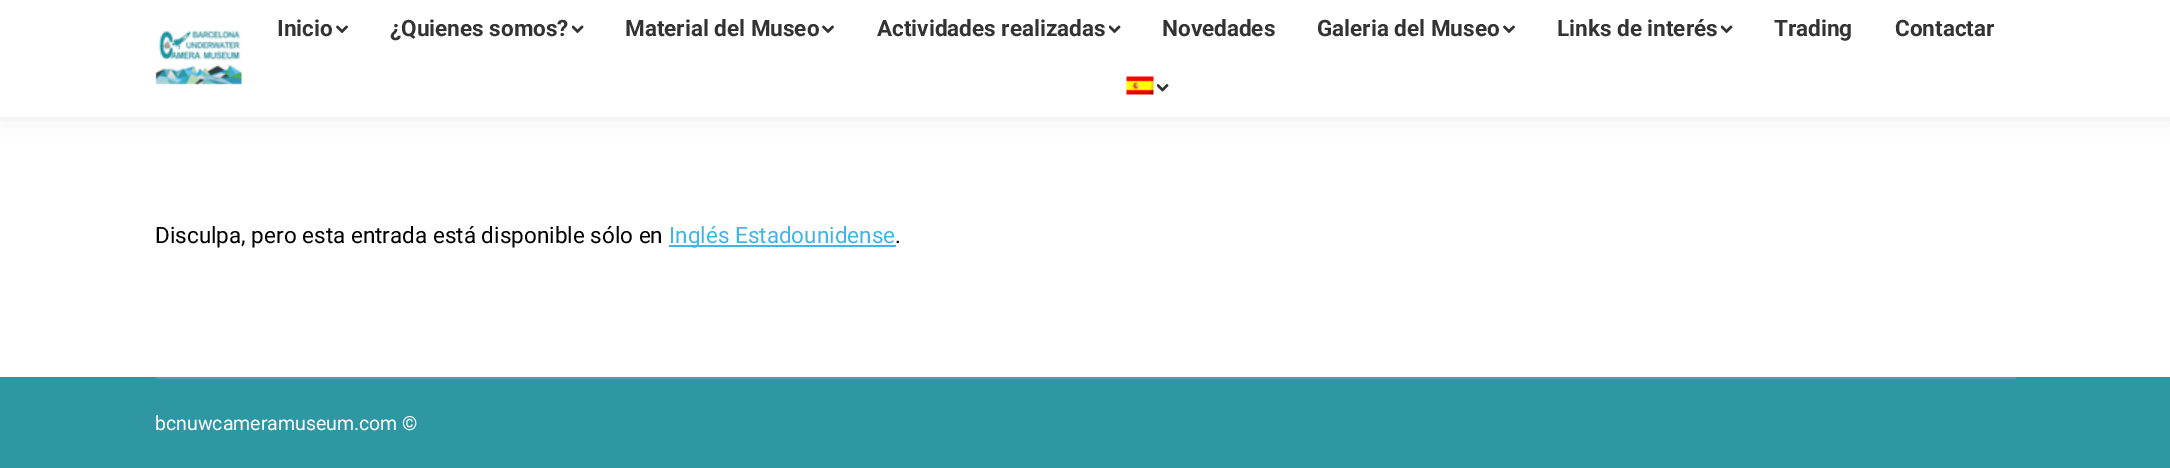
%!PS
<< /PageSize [2170 468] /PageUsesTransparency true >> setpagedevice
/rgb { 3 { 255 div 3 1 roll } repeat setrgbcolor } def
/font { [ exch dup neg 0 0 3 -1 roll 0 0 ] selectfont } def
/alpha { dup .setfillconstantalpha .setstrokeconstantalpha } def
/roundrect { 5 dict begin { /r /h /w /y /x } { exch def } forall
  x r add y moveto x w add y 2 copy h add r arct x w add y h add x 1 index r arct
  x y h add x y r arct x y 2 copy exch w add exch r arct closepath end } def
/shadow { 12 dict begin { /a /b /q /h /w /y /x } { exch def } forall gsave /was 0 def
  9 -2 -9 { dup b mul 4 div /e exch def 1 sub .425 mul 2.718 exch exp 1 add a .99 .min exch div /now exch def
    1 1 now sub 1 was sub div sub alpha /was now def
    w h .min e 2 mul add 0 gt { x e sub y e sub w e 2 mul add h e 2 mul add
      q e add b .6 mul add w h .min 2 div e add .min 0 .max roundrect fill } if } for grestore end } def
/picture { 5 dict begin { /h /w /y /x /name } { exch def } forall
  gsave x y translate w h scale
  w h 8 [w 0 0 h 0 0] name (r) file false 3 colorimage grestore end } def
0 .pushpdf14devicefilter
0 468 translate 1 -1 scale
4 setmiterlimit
255 255 255 rgb
0 0 2170 468 rectfill
0 0 0 rgb
-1 -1 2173 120 0 11 0.07 shadow
255 255 255 rgb
0 0 2170 117 rectfill
(img/1.rgb) 155 30 87 55 picture
(img/2.rgb) 336 25 12 8 picture
(img/3.rgb) 572 25 12 8 picture
(img/2.rgb) 822 25 12 8 picture
(img/3.rgb) 1109 25 12 8 picture
(img/2.rgb) 1503 25 12 8 picture
(img/3.rgb) 1721 25 12 8 picture
(img/4.rgb) 1126 76 28 19 picture
(img/5.rgb) 1157 84 12 8 picture
[
  [669 245 227 2 66 180 230]
  [0 377 2170 91 47 151 163]
  [156 377 1860 2 72 163 174]
] { aload pop rgb rectfill } forall
/Roboto-Bold 22.5 font
51 51 51 rgb
[
  [(Inicio) 277 36]
  [(¿Quienes somos?) 390 36]
  [(Material del Museo) 625 36]
  [(Actividades realizadas) 877 36]
  [(Novedades) 1162 36]
  [(Galeria del Museo) 1317 36]
  [(Links de interés) 1557 36]
  [(Trading) 1774 36]
  [(Contactar) 1895 36]
] { aload pop moveto show } forall
/Roboto-Regular 22.5 font
0 0 0 rgb
155 243 moveto (Disculpa, pero esta entrada está disponible sólo en) show
66 180 230 rgb
669 243 moveto (Inglés Estadounidense) show
0 0 0 rgb
895 243 moveto (.) show
/Roboto-Regular 19.5 font
255 255 255 rgb
155 430 moveto (bcnuwcameramuseum.com ©) show
.poppdf14devicefilter showpage
